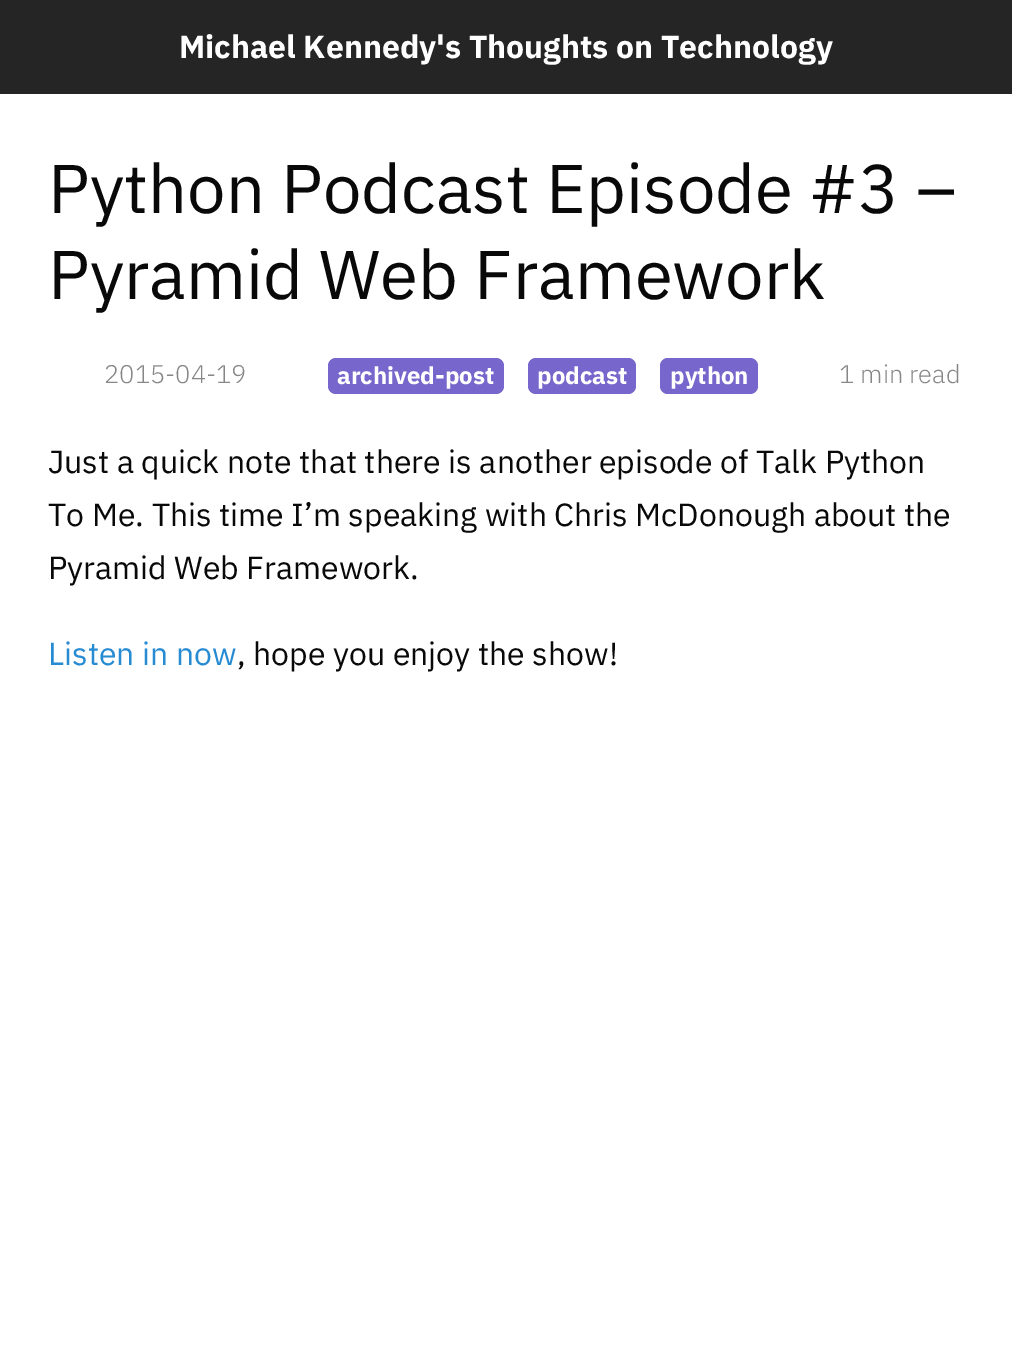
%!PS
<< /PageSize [1012 1348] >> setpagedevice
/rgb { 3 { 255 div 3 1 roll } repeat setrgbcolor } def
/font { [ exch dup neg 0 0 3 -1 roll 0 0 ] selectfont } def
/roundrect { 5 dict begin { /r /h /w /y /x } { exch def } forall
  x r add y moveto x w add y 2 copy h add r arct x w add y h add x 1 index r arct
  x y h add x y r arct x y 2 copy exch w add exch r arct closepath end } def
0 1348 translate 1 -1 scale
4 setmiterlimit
255 255 255 rgb
0 0 1012 1348 rectfill
37 37 37 rgb
0 0 1012 94 rectfill
119 102 204 rgb
328 358 176 36 8 roundrect fill
528 358 108 36 8 roundrect fill
660 358 98 36 8 roundrect fill
/IBMPlexSans-Bold 32 font
255 255 255 rgb
179 58 moveto (Michael Kennedy's Thoughts on Technology) show
/IBMPlexSans-Regular 68.75 font
9 9 9 rgb
48 213 moveto (Python Podcast Episode #3 –) show
48 299 moveto (Pyramid Web Framework) show
/IBMPlexSans-Light 25.5 font
135 135 135 rgb
104 383 moveto (2015-04-19) show
/IBMPlexSans-Bold 24 font
255 255 255 rgb
[
  [(archived-post) 337 384]
  [(podcast) 537 384]
  [(python) 670 384]
] { aload pop moveto show } forall
/IBMPlexSans-Light 25.5 font
135 135 135 rgb
839 383 moveto (1 min read) show
/IBMPlexSans-Regular 32 font
9 9 9 rgb
[
  [(Just a quick note that there is another episode of Talk Python) 48 473]
  [(To Me. This time I’m speaking with Chris McDonough about the) 48 526]
  [(Pyramid Web Framework.) 48 579]
] { aload pop moveto show } forall
38 139 210 rgb
48 665 moveto (Listen in now) show
9 9 9 rgb
237 665 moveto (, hope you enjoy the show!) show
showpage
